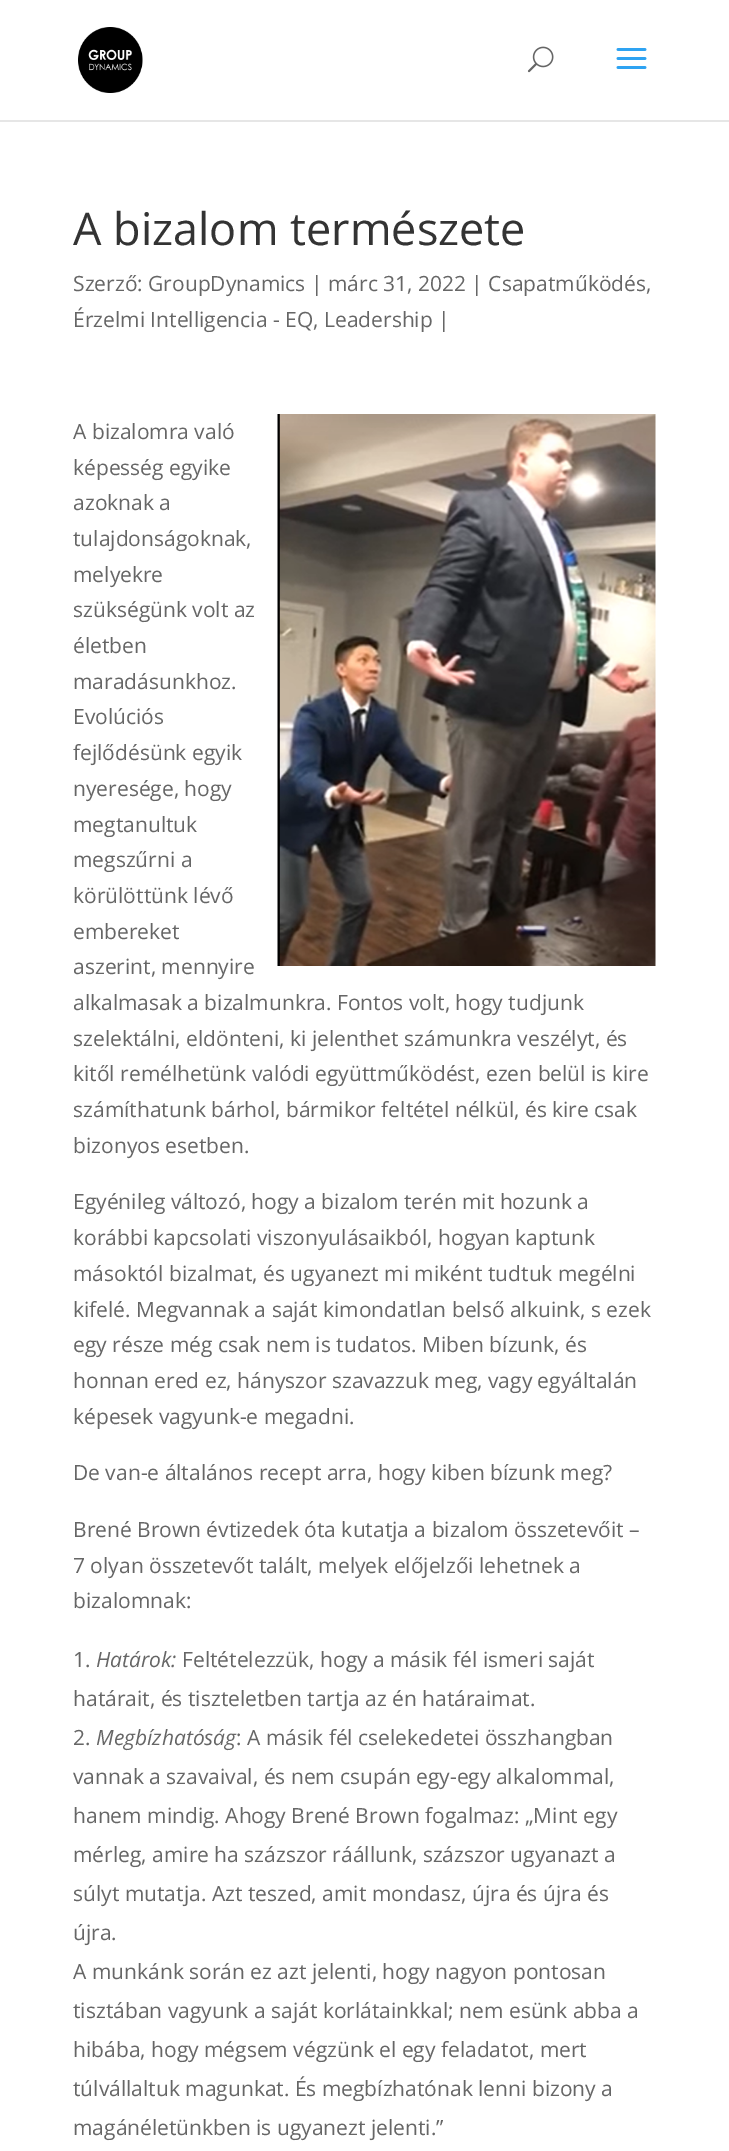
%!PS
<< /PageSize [729 2151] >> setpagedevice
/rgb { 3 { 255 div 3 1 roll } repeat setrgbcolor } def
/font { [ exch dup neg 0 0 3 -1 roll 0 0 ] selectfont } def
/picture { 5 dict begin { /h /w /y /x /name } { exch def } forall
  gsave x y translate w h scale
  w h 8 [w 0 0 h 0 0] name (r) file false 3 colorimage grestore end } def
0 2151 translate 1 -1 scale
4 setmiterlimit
255 255 255 rgb
0 0 729 2151 rectfill
230 230 230 rgb
0 120 729 2 rectfill
(img/1.rgb) 78 27 65 66 picture
(img/2.rgb) 527 46 27 27 picture
(img/3.rgb) 616 48 31 21 picture
(img/4.rgb) 277 414 379 552 picture
/OpenSans-Regular 45 font
51 51 51 rgb
73 245 moveto (A bizalom természete) show
/OpenSans-Regular 21 font
102 102 102 rgb
[
  [(Szerző: GroupDynamics | márc 31, 2022 | Csapatműködés,) 73 291]
  [(Érzelmi Intelligencia - EQ, Leadership |) 73 327]
  [(A bizalomra való) 73 439]
  [(képesség egyike) 73 475]
  [(azoknak a) 73 510]
  [(tulajdonságoknak,) 73 546]
  [(melyekre) 73 582]
  [(szükségünk volt az) 73 617]
  [(életben) 73 653]
  [(maradásunkhoz.) 73 689]
  [(Evolúciós) 73 724]
  [(fejlődésünk egyik) 73 760]
  [(nyeresége, hogy) 73 796]
  [(megtanultuk) 73 832]
  [(megszűrni a) 73 867]
  [(körülöttünk lévő) 73 903]
  [(embereket) 73 939]
  [(aszerint, mennyire) 73 974]
  [(alkalmasak a bizalmunkra. Fontos volt, hogy tudjunk) 73 1010]
  [(szelektálni, eldönteni, ki jelenthet számunkra veszélyt, és) 73 1046]
  [(kitől remélhetünk valódi együttműködést, ezen belül is kire) 73 1081]
  [(számíthatunk bárhol, bármikor feltétel nélkül, és kire csak) 73 1117]
  [(bizonyos esetben.) 73 1153]
  [(Egyénileg változó, hogy a bizalom terén mit hozunk a) 73 1209]
  [(korábbi kapcsolati viszonyulásaikból, hogyan kaptunk) 73 1245]
  [(másoktól bizalmat, és ugyanezt mi miként tudtuk megélni) 73 1281]
  [(kifelé. Megvannak a saját kimondatlan belső alkuink, s ezek) 73 1317]
  [(egy része még csak nem is tudatos. Miben bízunk, és) 73 1352]
  [(honnan ered ez, hányszor szavazzuk meg, vagy egyáltalán) 73 1388]
  [(képesek vagyunk-e megadni.) 73 1424]
  [(De van-e általános recept arra, hogy kiben bízunk meg?) 73 1480]
  [(Brené Brown évtizedek óta kutatja a bizalom összetevőit –) 73 1537]
  [(7 olyan összetevőt talált, melyek előjelzői lehetnek a) 73 1573]
  [(bizalomnak:) 73 1608]
  [(1.) 73 1667]
] { aload pop moveto show } forall
/OpenSans-Italic 21 font
96 1667 moveto (Határok:) show
/OpenSans-Regular 21 font
[
  [(Feltételezzük, hogy a másik fél ismeri saját) 182 1667]
  [(határait, és tiszteletben tartja az én határaimat.) 73 1706]
  [(2.) 73 1745]
] { aload pop moveto show } forall
/OpenSans-Italic 21 font
96 1745 moveto (Megbízhatóság) show
/OpenSans-Regular 21 font
[
  [(: A másik fél cselekedetei összhangban) 236 1745]
  [(vannak a szavaival, és nem csupán egy-egy alkalommal,) 73 1784]
  [(hanem mindig. Ahogy Brené Brown fogalmaz: „Mint egy) 73 1823]
  [(mérleg, amire ha százszor ráállunk, százszor ugyanazt a) 73 1862]
  [(súlyt mutatja. Azt teszed, amit mondasz, újra és újra és) 73 1901]
  [(újra.) 73 1940]
  [(A munkánk során ez azt jelenti, hogy nagyon pontosan) 73 1979]
  [(tisztában vagyunk a saját korlátainkkal; nem esünk abba a) 73 2018]
  [(hibába, hogy mégsem végzünk el egy feladatot, mert) 73 2057]
  [(túlvállaltuk magunkat. És megbízhatónak lenni bizony a) 73 2096]
  [(magánéletünkben is ugyanezt jelenti.”) 73 2135]
] { aload pop moveto show } forall
showpage
